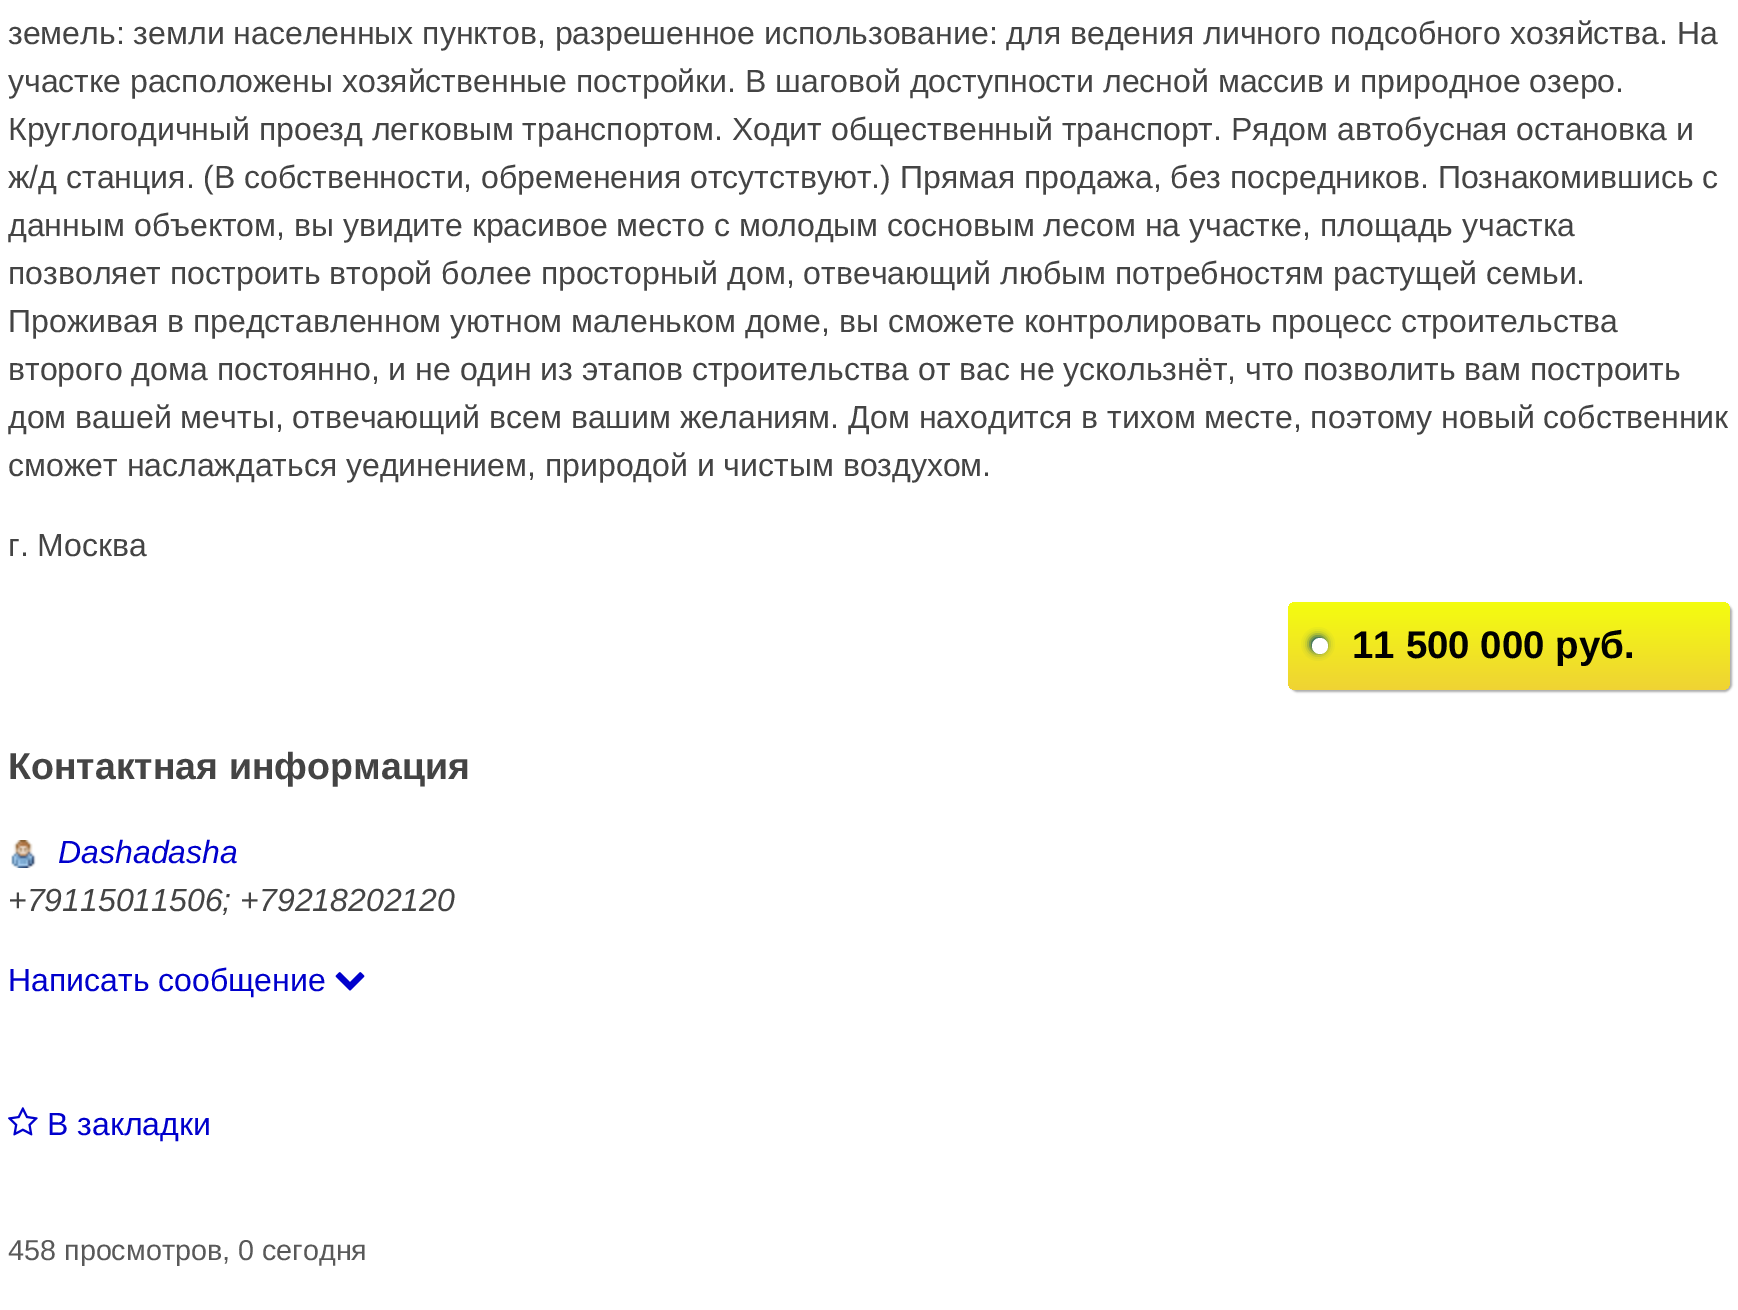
%!PS
<< /PageSize [1738 1310] /PageUsesTransparency true >> setpagedevice
/rgb { 3 { 255 div 3 1 roll } repeat setrgbcolor } def
/font { [ exch dup neg 0 0 3 -1 roll 0 0 ] selectfont } def
/alpha { dup .setfillconstantalpha .setstrokeconstantalpha } def
/circle { newpath 0 360 arc closepath } def
/roundrect { 5 dict begin { /r /h /w /y /x } { exch def } forall
  x r add y moveto x w add y 2 copy h add r arct x w add y h add x 1 index r arct
  x y h add x y r arct x y 2 copy exch w add exch r arct closepath end } def
/shadow { 12 dict begin { /a /b /q /h /w /y /x } { exch def } forall gsave /was 0 def
  9 -2 -9 { dup b mul 4 div /e exch def 1 sub .425 mul 2.718 exch exp 1 add a .99 .min exch div /now exch def
    1 1 now sub 1 was sub div sub alpha /was now def
    w h .min e 2 mul add 0 gt { x e sub y e sub w e 2 mul add h e 2 mul add
      q e add b .6 mul add w h .min 2 div e add .min 0 .max roundrect fill } if } for grestore end } def
/picture { 5 dict begin { /h /w /y /x /name } { exch def } forall
  gsave x y translate w h scale
  w h 8 [w 0 0 h 0 0] name (r) file false 3 colorimage grestore end } def
0 .pushpdf14devicefilter
0 1310 translate 1 -1 scale
4 setmiterlimit
255 255 255 rgb
0 0 1738 1310 rectfill
170 170 170 rgb
1290 604 442 88 8 1 1 shadow
gsave 1288 602 442 88 8 roundrect clip newpath
<< /ShadingType 2 /ColorSpace /DeviceRGB /Coords [1288 602 1288 690] /Extend [true true] /Function << /FunctionType 2 /Domain [0 1] /C0 [0.957 0.992 0.059] /C1 [0.937 0.827 0.204] /N 1 >> >> shfill grestore
0 73 119 rgb
1310 636 16 16 8 4 1 shadow
255 255 255 rgb
1320 646 8 circle fill
(img/1.rgb) 11 840 25 28 picture
(img/2.rgb) 335 972 30 19 picture
(img/3.rgb) 8 1107 30 29 picture
/LiberationSans-Regular 32 font
68 68 68 rgb
[
  [(земель: земли населенных пунктов, разрешенное использование: для ведения личного подсобного хозяйства. На) 8 44]
  [(участке расположены хозяйственные постройки. В шаговой доступности лесной массив и природное озеро.) 8 92]
  [(Круглогодичный проезд легковым транспортом. Ходит общественный транспорт. Рядом автобусная остановка и) 8 140]
  [(ж/д станция. \(В собственности, обременения отсутствуют.\) Прямая продажа, без посредников. Познакомившись с) 8 188]
  [(данным объектом, вы увидите красивое место с молодым сосновым лесом на участке, площадь участка) 8 236]
  [(позволяет построить второй более просторный дом, отвечающий любым потребностям растущей семьи.) 8 284]
  [(Проживая в представленном уютном маленьком доме, вы сможете контролировать процесс строительства) 8 332]
  [(второго дома постоянно, и не один из этапов строительства от вас не ускользнёт, что позволить вам построить) 8 380]
  [(дом вашей мечты, отвечающий всем вашим желаниям. Дом находится в тихом месте, поэтому новый собственник) 8 428]
  [(сможет наслаждаться уединением, природой и чистым воздухом.) 8 476]
  [(г. Москва) 8 556]
] { aload pop moveto show } forall
/LiberationSans-Bold 38.5 font
0 0 0 rgb
1352 658 moveto (11 500 000 руб.) show
/LiberationSans-Bold 37.5 font
68 68 68 rgb
8 779 moveto (Контактная информация) show
/LiberationSans-Italic 32 font
0 0 204 rgb
58 863 moveto (Dashadasha) show
68 68 68 rgb
8 911 moveto (+79115011506; +79218202120) show
/LiberationSans-Regular 32 font
0 0 204 rgb
8 991 moveto (Написать сообщение) show
47 1135 moveto (В закладки) show
/LiberationSans-Regular 28.75 font
89 89 89 rgb
8 1260 moveto (458 просмотров, 0 сегодня) show
.poppdf14devicefilter showpage
